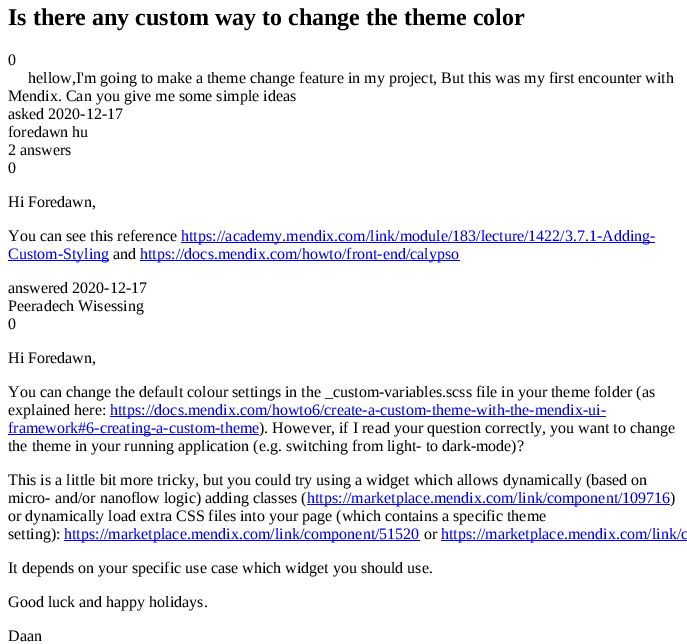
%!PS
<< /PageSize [687 644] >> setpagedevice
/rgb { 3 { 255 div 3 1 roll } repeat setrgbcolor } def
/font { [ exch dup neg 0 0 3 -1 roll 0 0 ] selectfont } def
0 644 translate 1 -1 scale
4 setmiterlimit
255 255 255 rgb
0 0 687 644 rectfill
[
  [181 242 474 1 0 0 238]
  [8 260 101 1 0 0 238]
  [140 260 320 1 0 0 238]
  [110 416 496 1 0 0 238]
  [8 434 251 1 0 0 238]
  [307 504 363 1 0 0 238]
  [64 540 356 1 0 0 238]
  [441 540 246 1 0 0 238]
] { aload pop rgb rectfill } forall
/LiberationSerif-Bold 24 font
0 0 0 rgb
8 25 moveto (Is there any custom way to change the theme color) show
/LiberationSerif-Regular 16 font
[
  [(0) 8 65]
  [(hellow,I'm going to make a theme change feature in my project, But this was my first encounter with) 28 83]
  [(Mendix. Can you give me some simple ideas) 8 101]
  [(asked 2020-12-17) 8 119]
  [(foredawn hu) 8 137]
  [(2 answers) 8 155]
  [(0) 8 173]
  [(Hi Foredawn,) 8 207]
  [(You can see this reference) 8 241]
] { aload pop moveto show } forall
0 0 238 rgb
181 241 moveto (https://academy.mendix.com/link/module/183/lecture/1422/3.7.1-Adding-) show
8 259 moveto (Custom-Styling) show
0 0 0 rgb
113 259 moveto (and) show
0 0 238 rgb
140 259 moveto (https://docs.mendix.com/howto/front-end/calypso) show
0 0 0 rgb
[
  [(answered 2020-12-17) 8 293]
  [(Peeradech Wisessing) 8 311]
  [(0) 8 329]
  [(Hi Foredawn,) 8 363]
  [(You can change the default colour settings in the _custom-variables.scss file in your theme folder \(as) 8 397]
  [(explained here:) 8 415]
] { aload pop moveto show } forall
0 0 238 rgb
110 415 moveto (https://docs.mendix.com/howto6/create-a-custom-theme-with-the-mendix-ui-) show
8 433 moveto (framework#6-creating-a-custom-theme) show
0 0 0 rgb
[
  [(\). However, if I read your question correctly, you want to change) 259 433]
  [(the theme in your running application \(e.g. switching from light- to dark-mode\)?) 8 451]
  [(This is a little bit more tricky, but you could try using a widget which allows dynamically \(based on) 8 485]
  [(micro- and/or nanoflow logic\) adding classes \() 8 503]
] { aload pop moveto show } forall
0 0 238 rgb
307 503 moveto (https://marketplace.mendix.com/link/component/109716) show
0 0 0 rgb
[
  [(\)) 670 503]
  [(or dynamically load extra CSS files into your page \(which contains a specific theme) 8 521]
  [(setting\):) 8 539]
] { aload pop moveto show } forall
0 0 238 rgb
64 539 moveto (https://marketplace.mendix.com/link/component/51520) show
0 0 0 rgb
424 539 moveto (or) show
0 0 238 rgb
441 539 moveto (https://marketplace.mendix.com/link/c) show
0 0 0 rgb
[
  [(It depends on your specific use case which widget you should use.) 8 573]
  [(Good luck and happy holidays.) 8 607]
  [(Daan) 8 641]
] { aload pop moveto show } forall
showpage
